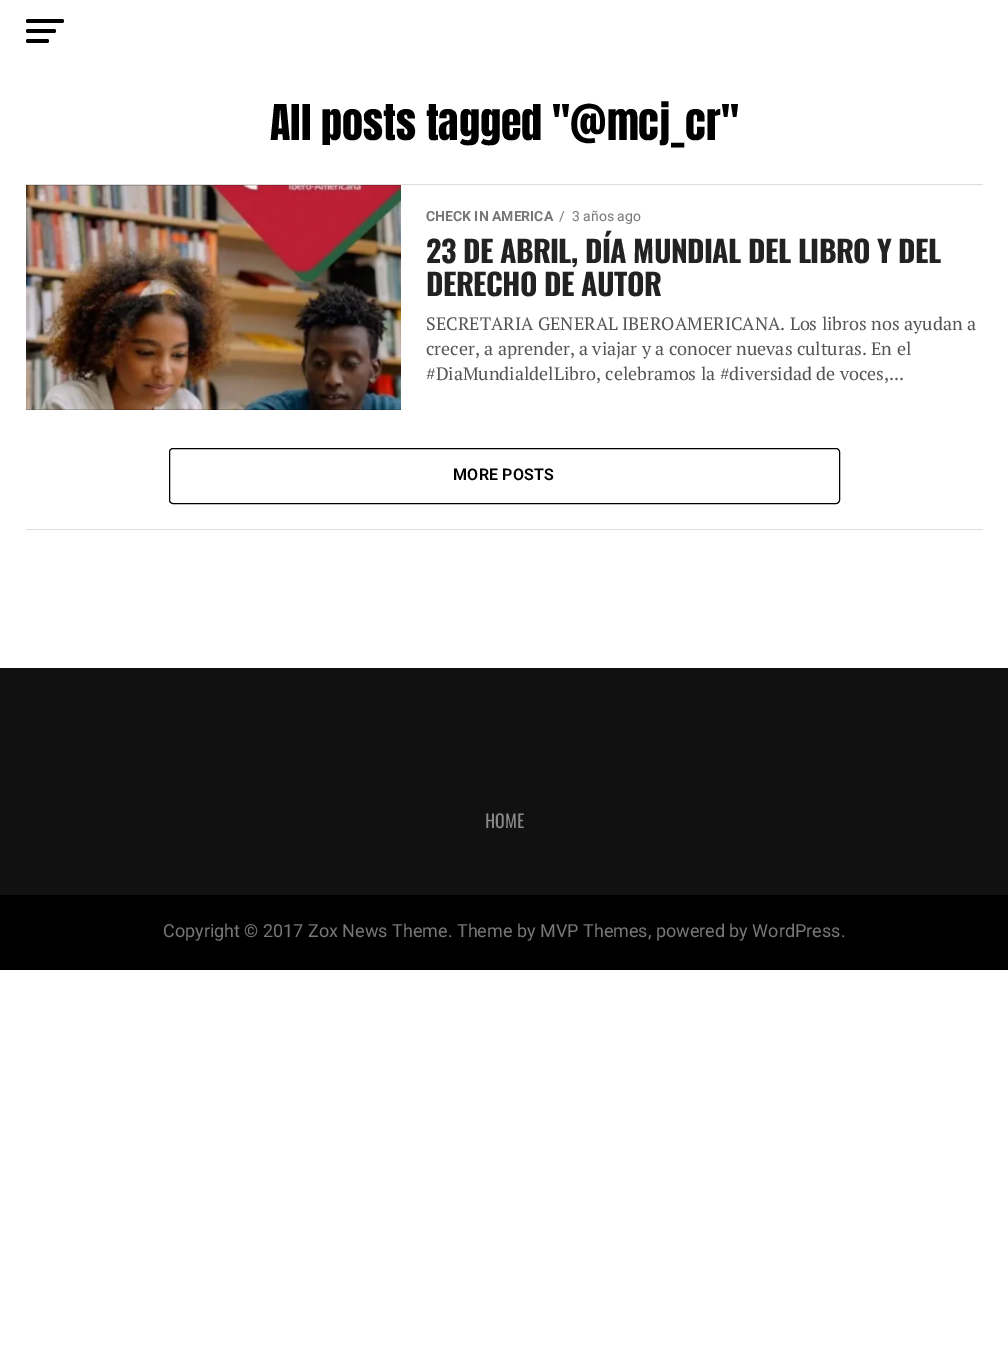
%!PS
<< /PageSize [1008 1363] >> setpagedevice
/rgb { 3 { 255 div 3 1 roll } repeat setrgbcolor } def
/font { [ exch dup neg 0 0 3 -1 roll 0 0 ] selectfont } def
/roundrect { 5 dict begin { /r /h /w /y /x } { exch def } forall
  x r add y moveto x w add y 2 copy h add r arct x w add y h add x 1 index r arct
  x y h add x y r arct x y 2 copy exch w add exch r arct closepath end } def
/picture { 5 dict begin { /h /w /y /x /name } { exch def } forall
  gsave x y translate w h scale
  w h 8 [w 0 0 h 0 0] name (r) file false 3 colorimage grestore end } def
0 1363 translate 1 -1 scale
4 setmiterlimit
255 255 255 rgb
0 0 1008 1363 rectfill
0 0 0 rgb
26 19 38 4 2 roundrect fill
26 29 30 4 2 roundrect fill
26 39 23 4 2 roundrect fill
221 221 221 rgb
26 184 957 1 rectfill
(img/1.rgb) 26 185 375 225 picture
0 0 0 rgb
169.5 448.5 670 55 3.5 roundrect stroke
[
  [26 529 957 1 221 221 221]
  [0 668 1008 227 17 17 17]
  [0 895 1008 75 0 0 0]
] { aload pop rgb rectfill } forall
/Anton-Regular 42 font
270 140 moveto (All posts tagged "@mcj_cr") show
/Roboto-Bold 14 font
119 119 119 rgb
426 221 moveto (CHECK IN AMERICA) show
/Roboto-Regular 14 font
559 221 moveto (/) show
572 221 moveto (3 años ago) show
/Oswald-Bold 30 font
34 34 34 rgb
426 263 moveto -0.6 0 (23 DE ABRIL, DÍA MUNDIAL DEL LIBRO Y DEL) ashow
426 296 moveto -0.6 0 (DERECHO DE AUTOR) ashow
/PTSerif-Regular 18 font
85 85 85 rgb
[
  [(SECRETARIA GENERAL IBEROAMERICANA. Los libros nos ayudan a) 426 330]
  [(crecer, a aprender, a viajar y a conocer nuevas culturas. En el) 426 355]
  [(#DiaMundialdelLibro, celebramos la #diversidad de voces,...) 426 380]
] { aload pop moveto show } forall
/Roboto-SemiBold 16 font
0 0 0 rgb
453 480 moveto 0.25 0 (MORE POSTS) ashow
/Oswald-Regular 18 font
136 136 136 rgb
485 828 moveto (HOME) show
/Roboto-Regular 18 font
119 119 119 rgb
163 937 moveto (Copyright © 2017 Zox News Theme. Theme by MVP Themes, powered by WordPress.) show
showpage
